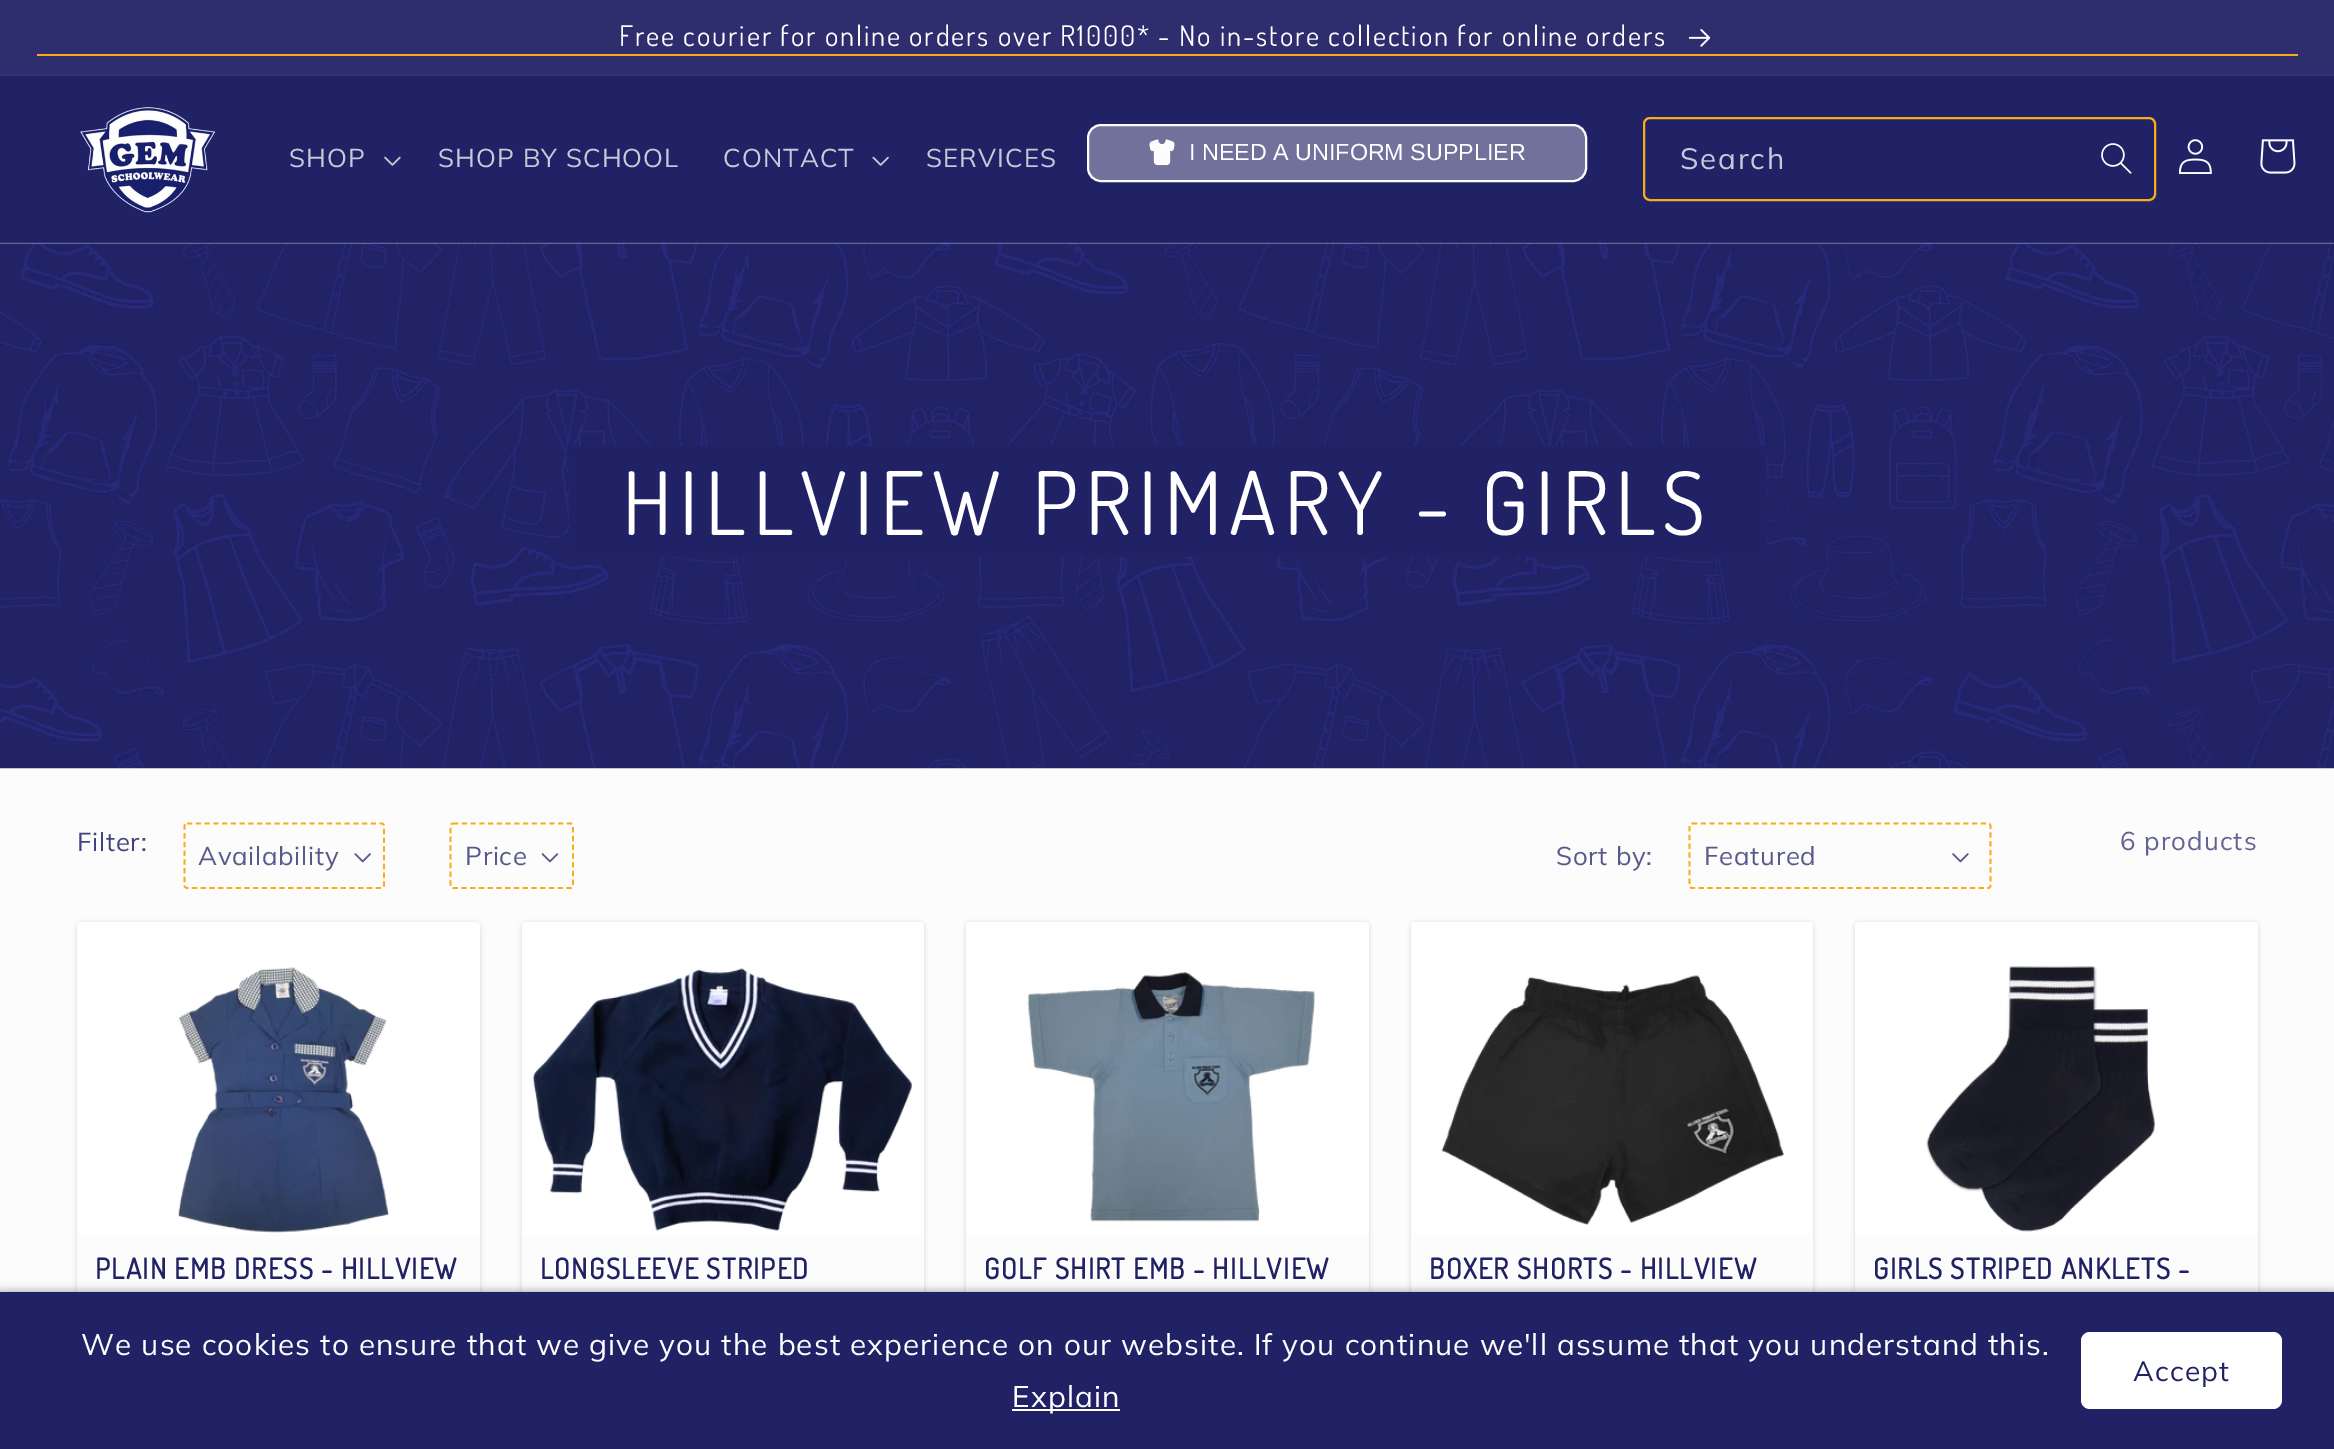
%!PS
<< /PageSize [2334 1449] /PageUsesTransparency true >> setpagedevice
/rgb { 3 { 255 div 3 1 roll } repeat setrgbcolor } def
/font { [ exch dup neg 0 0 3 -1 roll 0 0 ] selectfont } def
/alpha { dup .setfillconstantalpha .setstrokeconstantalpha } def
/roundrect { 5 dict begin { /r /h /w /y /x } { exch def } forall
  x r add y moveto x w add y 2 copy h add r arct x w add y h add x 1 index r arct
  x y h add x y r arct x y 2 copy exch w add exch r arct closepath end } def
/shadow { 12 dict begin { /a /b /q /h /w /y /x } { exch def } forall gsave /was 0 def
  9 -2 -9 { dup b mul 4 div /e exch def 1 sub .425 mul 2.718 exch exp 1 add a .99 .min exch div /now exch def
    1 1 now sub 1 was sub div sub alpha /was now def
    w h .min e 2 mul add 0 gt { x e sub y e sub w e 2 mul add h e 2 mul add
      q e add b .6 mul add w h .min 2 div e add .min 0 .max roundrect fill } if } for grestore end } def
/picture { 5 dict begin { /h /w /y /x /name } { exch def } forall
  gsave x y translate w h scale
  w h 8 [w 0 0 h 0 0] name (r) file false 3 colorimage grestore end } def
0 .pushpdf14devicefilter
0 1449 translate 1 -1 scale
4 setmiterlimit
252 252 252 rgb
0 0 2334 1449 rectfill
[
  [0 74 2334 2 51 51 113]
  [0 0 2334 74 46 46 110]
  [37 54 2261 2 250 171 25]
] { aload pop rgb rectfill } forall
(img/1.rgb) 1689 29 22 18 picture
33 33 101 rgb
0 76 2334 167 rectfill
(img/9.rgb) 0 243 2334 526 picture
0.08 alpha
255 255 255 rgb
0 242 2334 2 rectfill
1 alpha
(img/2.rgb) 80 107 136 106 picture
(img/3.rgb) 384 156 17 10 picture
(img/4.rgb) 872 156 17 10 picture
113 113 156 rgb
1088 125 498 56 13 roundrect gsave fill grestore
252 252 252 rgb
2 setlinewidth
stroke
(img/5.rgb) 1149 139 26 27 picture
250 171 25 rgb
1644 118 511 82 6 roundrect stroke
(img/6.rgb) 2101 143 31 31 picture
(img/7.rgb) 2178 139 34 35 picture
(img/8.rgb) 2260 139 36 35 picture
33 33 101 rgb
569 446 1197 111 rectfill
250 171 25 rgb
1.8 setlinewidth
[5.25 3.5] 0 setdash
187 823.5 moveto 381.5 823.5 lineto 383 823.5 384 824.5 384 826 curveto 384 885.5 lineto 384 887 383 888 381.5 888 curveto 187 888 lineto 186 888 184.5 887 184.5 885.5 curveto 184.5 826 lineto 184.5 824.5 186 823.5 187 823.5 curveto closepath stroke
(img/10.rgb) 354 853 17 10 picture
453 823.5 moveto 570.5 823.5 lineto 572 823.5 573 824.5 573 826 curveto 573 885.5 lineto 573 887 572 888 570.5 888 curveto 453 888 lineto 452 888 450.5 887 450.5 885.5 curveto 450.5 826 lineto 450.5 824.5 452 823.5 453 823.5 curveto closepath stroke
(img/11.rgb) 541 853 18 10 picture
1692 823.5 moveto 1988 823.5 lineto 1989.5 823.5 1990.5 824.5 1990.5 826 curveto 1990.5 885.5 lineto 1990.5 887 1989.5 888 1988 888 curveto 1692 888 lineto 1691 888 1689.5 887 1689.5 885.5 curveto 1689.5 826 lineto 1689.5 824.5 1691 823.5 1692 823.5 curveto closepath stroke
(img/12.rgb) 1952 853 17 10 picture
77 77 79 rgb
77 922 403 511 4 2 0.16 shadow
77 926 403 511 4 2 0.08 shadow
255 255 255 rgb
77 922 403 511 4 roundrect fill
(img/13.rgb) 178 967 211 266 picture
252 252 252 rgb
77 1234 403 58 rectfill
77 77 79 rgb
522 922 402 511 4 2 0.16 shadow
522 926 402 511 4 2 0.08 shadow
255 255 255 rgb
522 922 402 511 4 roundrect fill
(img/14.rgb) 532 968 380 263 picture
252 252 252 rgb
522 1234 402 58 rectfill
77 77 79 rgb
966 922 403 511 4 2 0.16 shadow
966 926 403 511 4 2 0.08 shadow
255 255 255 rgb
966 922 403 511 4 roundrect fill
(img/15.rgb) 1027 972 288 250 picture
252 252 252 rgb
966 1234 403 58 rectfill
77 77 79 rgb
1411 922 402 511 4 2 0.16 shadow
1411 926 402 511 4 2 0.08 shadow
255 255 255 rgb
1411 922 402 511 4 roundrect fill
(img/16.rgb) 1441 975 343 250 picture
252 252 252 rgb
1411 1234 402 58 rectfill
77 77 79 rgb
1855 922 403 511 4 2 0.16 shadow
1855 926 403 511 4 2 0.08 shadow
255 255 255 rgb
1855 922 403 511 4 roundrect fill
(img/17.rgb) 1926 966 230 266 picture
252 252 252 rgb
1855 1234 403 58 rectfill
0 0 0 rgb
0 1292 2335 157 0 4.5 0.4 shadow
33 33 101 rgb
0 1292 2334 157 rectfill
255 255 255 rgb
1012 1409 108 2 rectfill
2081 1332 201 77 9 roundrect fill
/Dosis-Regular 28.45 font
619 46 moveto 1.85 0 (Free courier for online orders over R1000* - No in-store collection for online orders) ashow
/Muli-Regular 25.75 font
200 200 217 rgb
289 167 moveto 1.1 0 (SHOP) ashow
438 167 moveto 1.1 0 (SHOP BY SCHOOL) ashow
723 167 moveto 1.1 0 (CONTACT) ashow
926 167 moveto 1.1 0 (SERVICES) ashow
/LiberationSans-Regular 23.3 font
255 255 255 rgb
1189 160 moveto (I NEED A UNIFORM SUPPLIER) show
/Muli-Regular 29.5 font
200 200 217 rgb
1680 169 moveto 1.85 0 (Search) ashow
/Dosis-Regular 87.5 font
255 255 255 rgb
622 535 moveto 7 0 (HILLVIEW PRIMARY - GIRLS) ashow
/Muli-Regular 25.75 font
66 66 124 rgb
77 851 moveto 0.75 0 (Filter:) ashow
88 88 139 rgb
198 865 moveto 0.75 0 (Availability) ashow
465 865 moveto 0.75 0 (Price) ashow
1556 865 moveto 0.75 0 (Sort by:) ashow
1704 865 moveto 0.75 0 (Featured) ashow
99 99 146 rgb
2120 850 moveto 1.1 0 (6 products) ashow
/Dosis-Bold 28.45 font
33 33 101 rgb
95 1279 moveto 1.3 0 (PLAIN EMB DRESS - HILLVIEW) ashow
540 1279 moveto 1.3 0 (LONGSLEEVE STRIPED) ashow
984 1279 moveto 1.3 0 (GOLF SHIRT EMB - HILLVIEW) ashow
1429 1279 moveto 1.3 0 (BOXER SHORTS - HILLVIEW) ashow
1873 1279 moveto 1.3 0 (GIRLS STRIPED ANKLETS -) ashow
/Muli-Regular 29.75 font
255 255 255 rgb
81 1355 moveto 1.1 0 (We use cookies to ensure that we give you the best experience on our website. If you continue we'll assume that you understand this.) ashow
1012 1407 moveto 1.1 0 (Explain) ashow
/Muli-Regular 28 font
33 33 101 rgb
2133 1381 moveto 1.1 0 (Accept) ashow
.poppdf14devicefilter showpage
